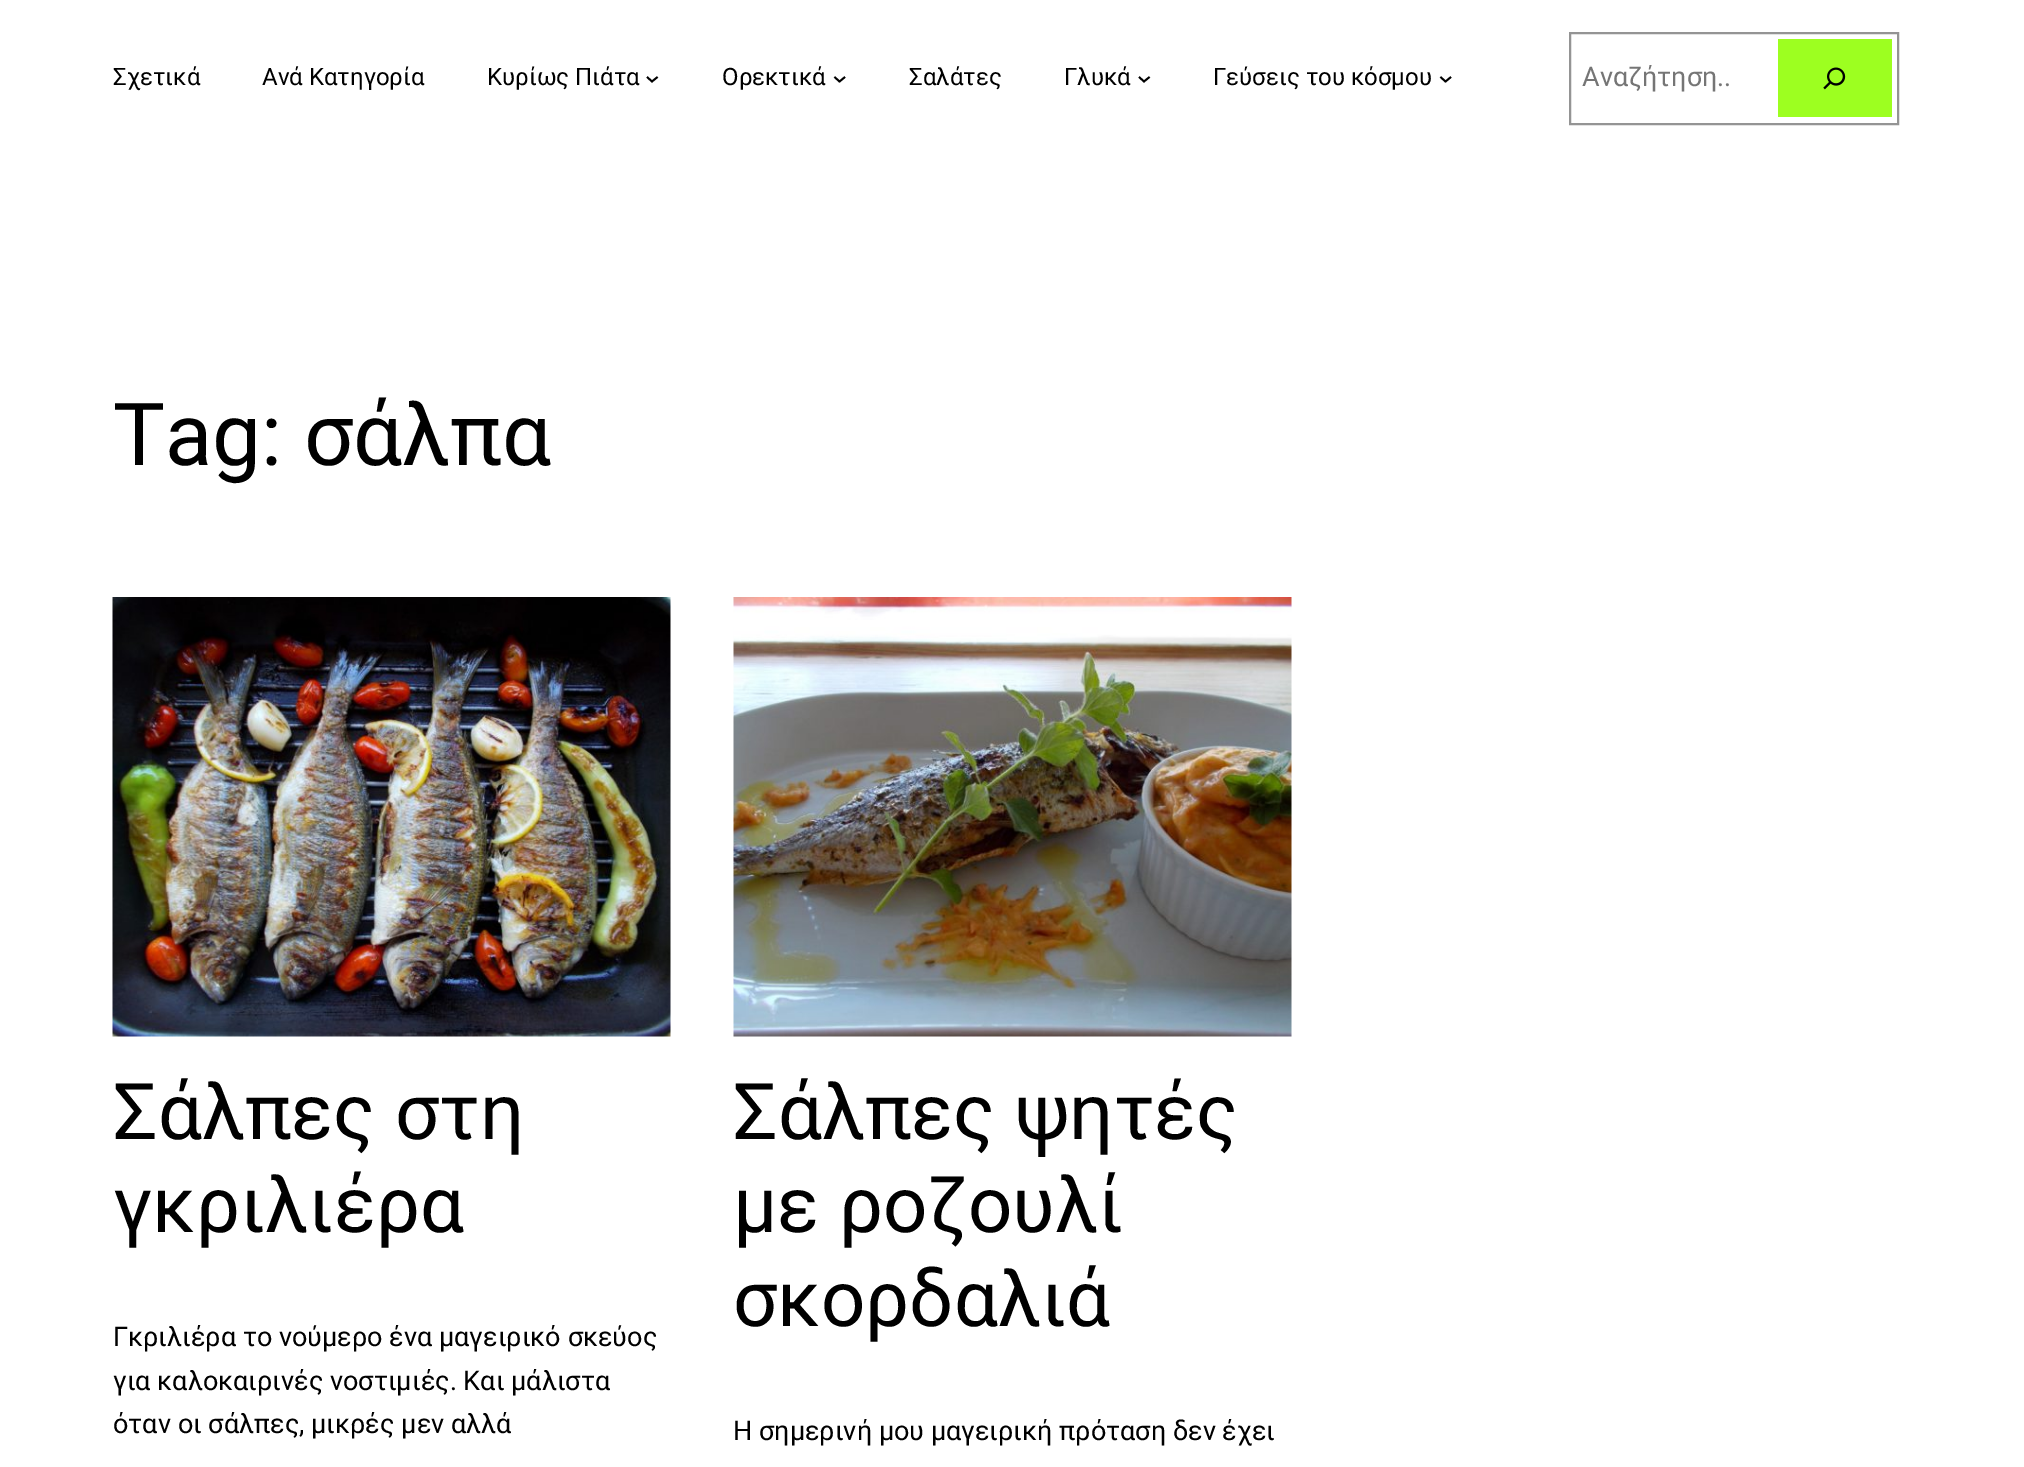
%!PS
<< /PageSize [2024 1467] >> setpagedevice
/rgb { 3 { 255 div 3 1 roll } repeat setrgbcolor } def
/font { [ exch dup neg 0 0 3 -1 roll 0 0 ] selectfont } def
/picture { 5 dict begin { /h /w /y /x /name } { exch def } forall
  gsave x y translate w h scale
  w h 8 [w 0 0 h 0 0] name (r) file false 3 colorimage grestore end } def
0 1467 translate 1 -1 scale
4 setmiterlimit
255 255 255 rgb
0 0 2024 1467 rectfill
0 0 0 rgb
1.8 setlinewidth
647 77 moveto 652 81.5 lineto 657.5 77 lineto stroke
834.5 77 moveto 839.5 81.5 lineto 845 77 lineto stroke
1139 77 moveto 1144 81.5 lineto 1149.5 77 lineto stroke
1440.5 77 moveto 1445.5 81.5 lineto 1451 77 lineto stroke
148 148 148 rgb
2 setlinewidth
1570 33 328 91 rectstroke
157 255 32 rgb
1778 39 114 78 rectfill
(img/1.rgb) 1823 67 23 23 picture
(img/2.rgb) 112 597 559 440 picture
(img/3.rgb) 733 597 559 440 picture
/Roboto-Regular 24 font
0 0 0 rgb
[
  [(Σχετικά) 113 85]
  [(Ανά Κατηγορία) 262 85]
  [(Κυρίως Πιάτα) 487 85]
  [(Ορεκτικά) 722 85]
  [(Σαλάτες) 909 85]
  [(Γλυκά) 1064 85]
  [(Γεύσεις του κόσμου) 1213 85]
] { aload pop moveto show } forall
/Roboto-Regular 27 font
117 117 117 rgb
1582 86 moveto (Αναζήτηση..) show
/Roboto-Regular 87 font
0 0 0 rgb
113 465 moveto (Tag: σάλπα) show
/Roboto-Regular 78 font
113 1139 moveto (Σάλπες στη) show
113 1232 moveto (γκριλιέρα) show
/Roboto-Regular 27 font
[
  [(Γκριλιέρα το νούμερο ένα μαγειρικό σκεύος) 113 1346]
  [(για καλοκαιρινές νοστιμιές. Και μάλιστα) 113 1390]
  [(όταν οι σάλπες, μικρές μεν αλλά) 113 1433]
] { aload pop moveto show } forall
/Roboto-Regular 78 font
[
  [(Σάλπες ψητές) 733 1139]
  [(με ροζουλί) 733 1232]
  [(σκορδαλιά) 733 1326]
] { aload pop moveto show } forall
/Roboto-Regular 27 font
733 1440 moveto (Η σημερινή μου μαγειρική πρόταση δεν έχει) show
showpage
